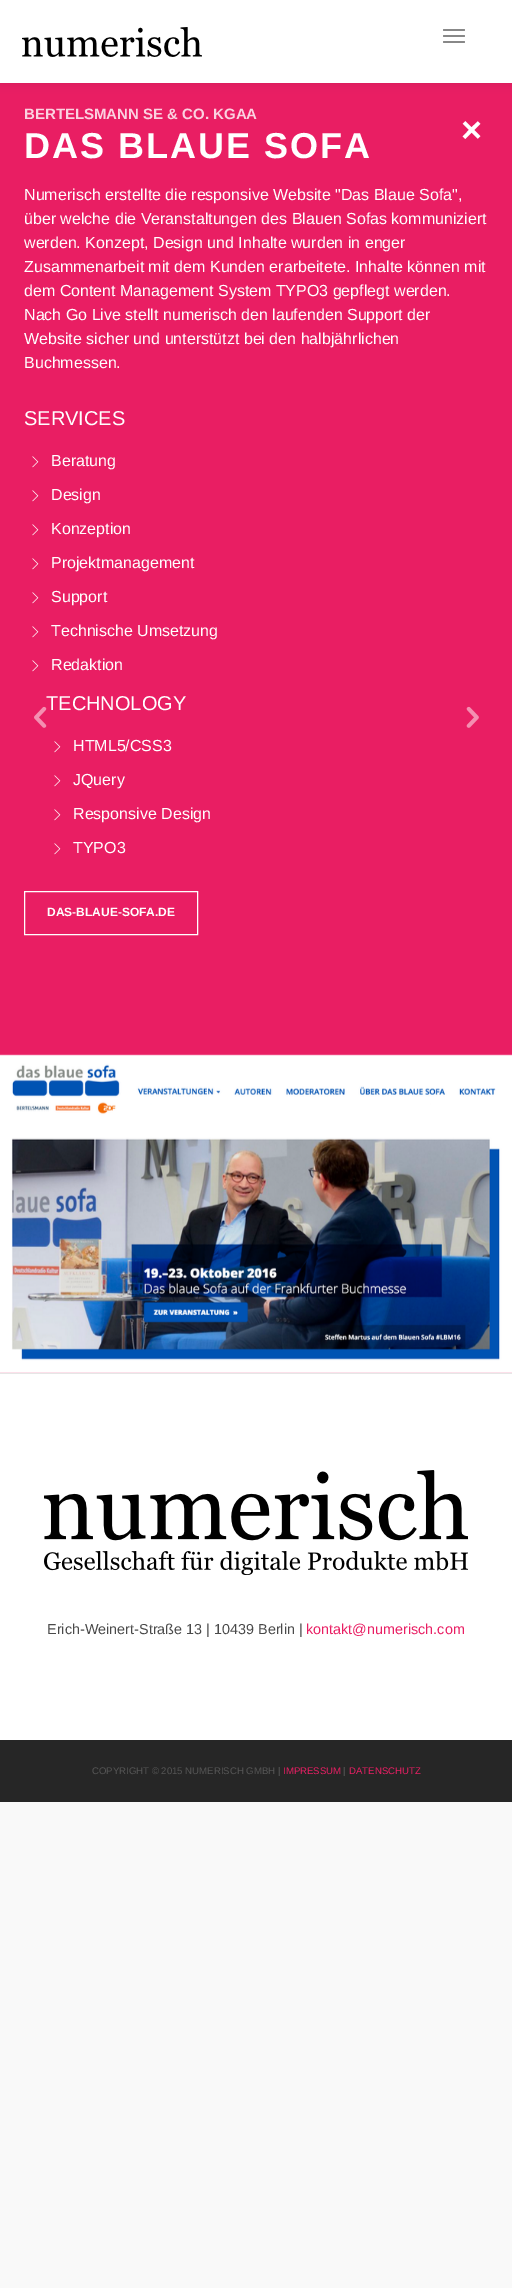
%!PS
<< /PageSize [512 2288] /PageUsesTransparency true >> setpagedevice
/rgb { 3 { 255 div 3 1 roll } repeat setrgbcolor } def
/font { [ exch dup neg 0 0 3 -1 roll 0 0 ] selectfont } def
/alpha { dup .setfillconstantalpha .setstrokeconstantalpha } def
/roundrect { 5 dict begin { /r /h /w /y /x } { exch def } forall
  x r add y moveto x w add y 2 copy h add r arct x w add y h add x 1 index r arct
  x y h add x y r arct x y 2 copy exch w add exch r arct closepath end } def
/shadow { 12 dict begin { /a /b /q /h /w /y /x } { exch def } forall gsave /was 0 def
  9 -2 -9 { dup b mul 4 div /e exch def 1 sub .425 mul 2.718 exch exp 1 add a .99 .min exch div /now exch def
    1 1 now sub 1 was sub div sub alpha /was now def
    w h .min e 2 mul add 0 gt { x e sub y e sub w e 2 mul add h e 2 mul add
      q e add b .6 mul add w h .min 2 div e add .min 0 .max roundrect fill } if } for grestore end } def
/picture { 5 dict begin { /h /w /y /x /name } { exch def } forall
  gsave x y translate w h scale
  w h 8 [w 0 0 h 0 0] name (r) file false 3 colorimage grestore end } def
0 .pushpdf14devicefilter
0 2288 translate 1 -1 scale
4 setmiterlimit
249 249 249 rgb
0 0 512 2288 rectfill
233 30 99 rgb
0 83 512 1290 rectfill
0 0 0 rgb
0 0 512 83 0 5 0.1 shadow
255 255 255 rgb
0 0 512 83 rectfill
(img/1.rgb) 22 27 180 30 picture
136 136 136 rgb
443 29 22 2 1 roundrect fill
443 35 22 2 1 roundrect fill
443 41 22 2 1 roundrect fill
(img/2.rgb) 32 456 7 12 picture
(img/2.rgb) 32 490 7 12 picture
(img/2.rgb) 32 524 7 12 picture
(img/2.rgb) 32 558 7 12 picture
(img/2.rgb) 32 592 7 12 picture
(img/2.rgb) 32 626 7 12 picture
(img/2.rgb) 32 660 7 12 picture
(img/2.rgb) 54 741 7 12 picture
(img/2.rgb) 54 775 7 12 picture
(img/2.rgb) 54 809 7 12 picture
(img/2.rgb) 54 843 7 12 picture
255 255 255 rgb
24.5 891.5 173 43 rectstroke
(img/3.rgb) 0 1054 512 319 picture
(img/5.rgb) 466 706 13 22 picture
0 1374 512 366 rectfill
230 230 230 rgb
0 1373 512 1 rectfill
(img/6.rgb) 44 1470 424 105 picture
38 38 38 rgb
0 1740 512 62 rectfill
/LiberationSans-Bold 15 font
251 210 224 rgb
24 119 moveto (BERTELSMANN SE & CO. KGAA) show
/LiberationSans-Bold 36 font
255 255 255 rgb
24 158 moveto 2 0 (DAS BLAUE SOFA) ashow
/LiberationSans-Regular 16 font
[
  [(Numerisch erstellte die responsive Website "Das Blaue Sofa",) 24 200]
  [(über welche die Veranstaltungen des Blauen Sofas kommuniziert) 24 224]
  [(werden. Konzept, Design und Inhalte wurden in enger) 24 248]
  [(Zusammenarbeit mit dem Kunden erarbeitete. Inhalte können mit) 24 272]
  [(dem Content Management System TYPO3 gepflegt werden.) 24 296]
  [(Nach Go Live stellt numerisch den laufenden Support der) 24 320]
  [(Website sicher und unterstützt bei den halbjährlichen) 24 344]
  [(Buchmessen.) 24 368]
] { aload pop moveto show } forall
/LiberationSans-Regular 20 font
24 425 moveto (SERVICES) show
/LiberationSans-Regular 16 font
[
  [(Beratung) 51 466]
  [(Design) 51 500]
  [(Konzeption) 51 534]
  [(Projektmanagement) 51 568]
  [(Support) 51 602]
  [(Technische Umsetzung) 51 636]
  [(Redaktion) 51 670]
] { aload pop moveto show } forall
/LiberationSans-Regular 20 font
46 710 moveto (TECHNOLOGY) show
/LiberationSans-Regular 16 font
[
  [(HTML5/CSS3) 73 751]
  [(JQuery) 73 785]
  [(Responsive Design) 73 819]
  [(TYPO3) 73 853]
] { aload pop moveto show } forall
/LiberationSans-Bold 12 font
47 916 moveto (DAS-BLAUE-SOFA.DE) show
/LiberationSans-Bold 36 font
461 142 moveto (×) show
(img/4.rgb) 34 706 13 22 picture
/LiberationSans-Regular 14.4 font
74 74 74 rgb
47 1634 moveto (Erich-Weinert-Straße 13 | 10439 Berlin |) show
233 30 99 rgb
306 1634 moveto (kontakt@numerisch.com) show
/LiberationSans-Regular 9.6 font
85 85 85 rgb
92 1774 moveto (COPYRIGHT © 2015 NUMERISCH GMBH |) show
233 30 99 rgb
283 1774 moveto (IMPRESSUM) show
85 85 85 rgb
343 1774 moveto (|) show
233 30 99 rgb
349 1774 moveto (DATENSCHUTZ) show
.poppdf14devicefilter showpage
